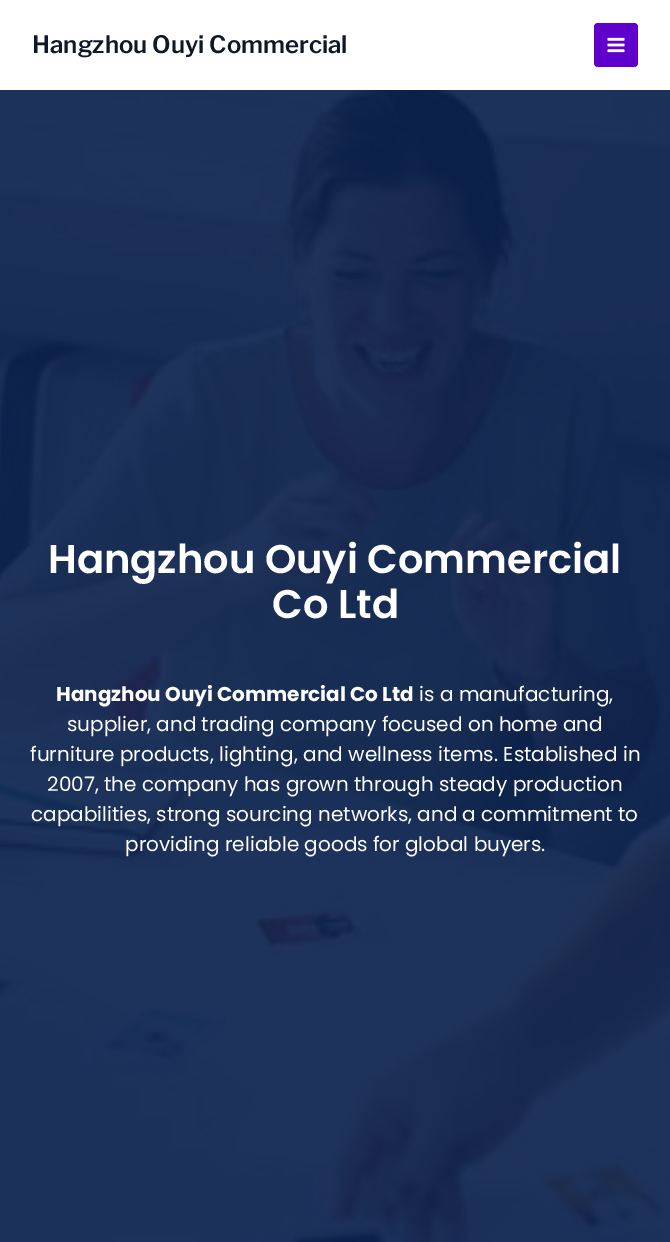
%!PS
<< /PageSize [670 1242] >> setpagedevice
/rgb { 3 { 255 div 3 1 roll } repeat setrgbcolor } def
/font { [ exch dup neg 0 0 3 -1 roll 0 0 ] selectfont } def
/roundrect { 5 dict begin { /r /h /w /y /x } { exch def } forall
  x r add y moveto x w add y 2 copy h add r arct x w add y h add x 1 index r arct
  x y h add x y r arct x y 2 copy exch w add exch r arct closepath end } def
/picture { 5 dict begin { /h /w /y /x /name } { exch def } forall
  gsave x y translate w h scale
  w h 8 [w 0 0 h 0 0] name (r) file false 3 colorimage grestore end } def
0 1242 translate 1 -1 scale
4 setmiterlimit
255 255 255 rgb
0 0 670 1242 rectfill
96 0 205 rgb
594 23 44 44 4 roundrect fill
(img/1.rgb) 607 37 18 16 picture
(img/2.rgb) 0 90 670 1152 picture
/LibreFranklin-SemiBold 24 font
15 23 42 rgb
32 53 moveto (Hangzhou Ouyi Commercial) show
/Poppins-SemiBold 40 font
255 255 255 rgb
48 573 moveto (Hangzhou Ouyi Commercial) show
272 618 moveto (Co Ltd) show
/Poppins-Bold 20 font
56 701 moveto (Hangzhou Ouyi Commercial Co Ltd) show
/Poppins-Regular 20 font
[
  [(is a manufacturing,) 419 701]
  [(supplier, and trading company focused on home and) 67 731]
  [(furniture products, lighting, and wellness items. Established in) 30 761]
  [(2007, the company has grown through steady production) 47 791]
  [(capabilities, strong sourcing networks, and a commitment to) 31 821]
  [(providing reliable goods for global buyers.) 125 851]
] { aload pop moveto show } forall
showpage
